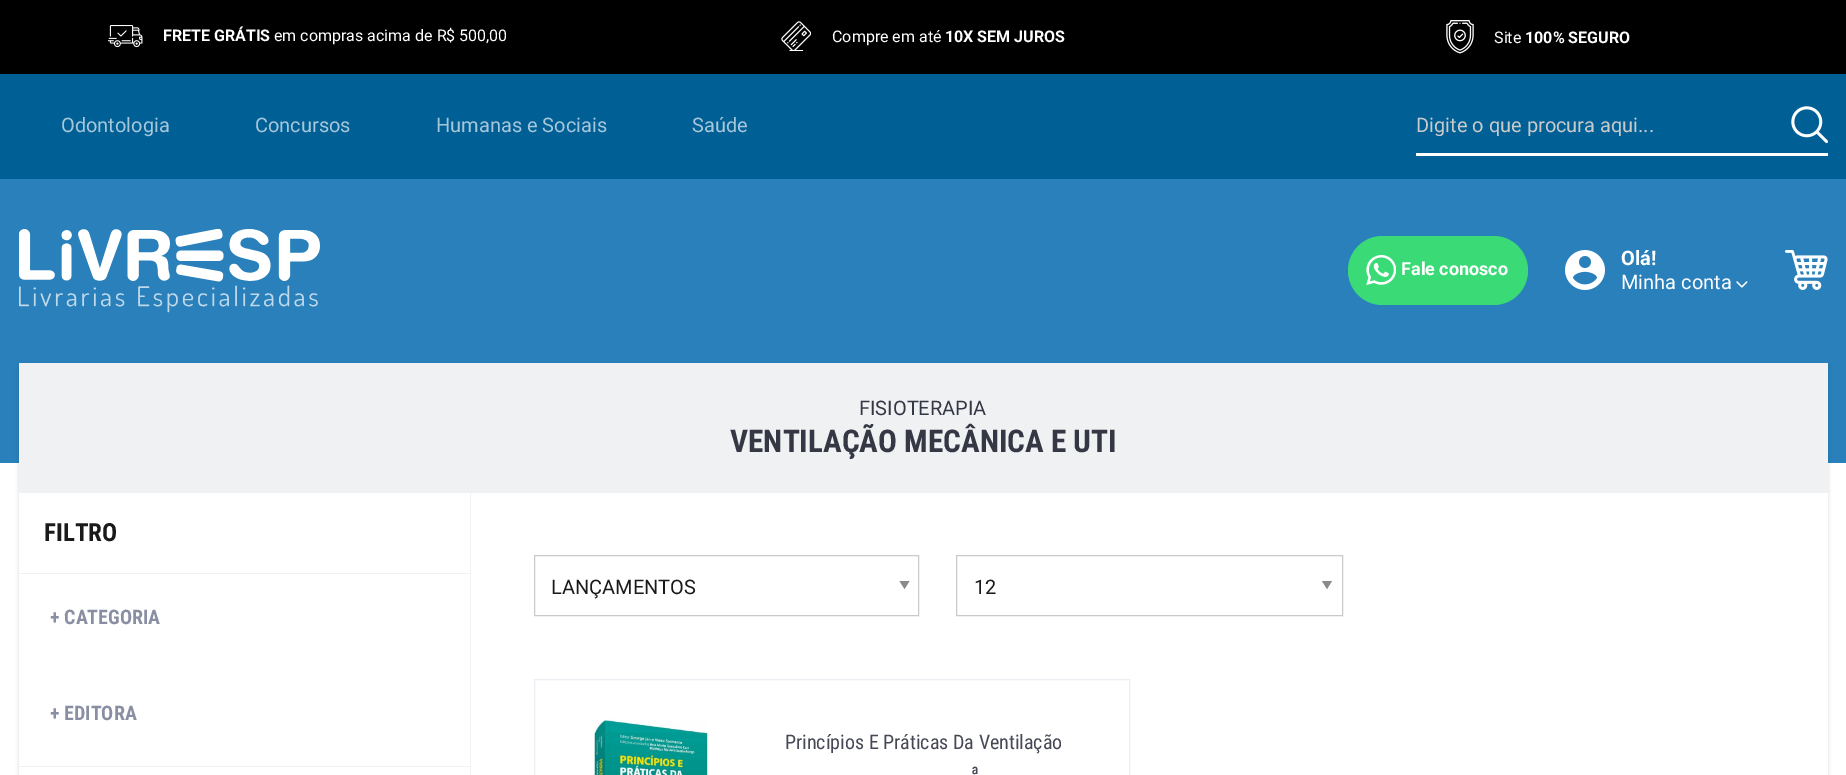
%!PS
<< /PageSize [1846 775] /PageUsesTransparency true >> setpagedevice
/rgb { 3 { 255 div 3 1 roll } repeat setrgbcolor } def
/font { [ exch dup neg 0 0 3 -1 roll 0 0 ] selectfont } def
/alpha { dup .setfillconstantalpha .setstrokeconstantalpha } def
/roundrect { 5 dict begin { /r /h /w /y /x } { exch def } forall
  x r add y moveto x w add y 2 copy h add r arct x w add y h add x 1 index r arct
  x y h add x y r arct x y 2 copy exch w add exch r arct closepath end } def
/shadow { 12 dict begin { /a /b /q /h /w /y /x } { exch def } forall gsave /was 0 def
  9 -2 -9 { dup b mul 4 div /e exch def 1 sub .425 mul 2.718 exch exp 1 add a .99 .min exch div /now exch def
    1 1 now sub 1 was sub div sub alpha /was now def
    w h .min e 2 mul add 0 gt { x e sub y e sub w e 2 mul add h e 2 mul add
      q e add b .6 mul add w h .min 2 div e add .min 0 .max roundrect fill } if } for grestore end } def
/picture { 5 dict begin { /h /w /y /x /name } { exch def } forall
  gsave x y translate w h scale
  w h 8 [w 0 0 h 0 0] name (r) file false 3 colorimage grestore end } def
0 .pushpdf14devicefilter
0 775 translate 1 -1 scale
4 setmiterlimit
255 255 255 rgb
0 0 1846 775 rectfill
0 0 0 rgb
0 0 1846 74 rectfill
(img/1.rgb) 108 25 35 23 picture
(img/2.rgb) 781 21 30 30 picture
(img/3.rgb) 1446 20 28 34 picture
0 95 149 rgb
0 74 1846 105 rectfill
255 255 255 rgb
1416 153 412 3 rectfill
(img/4.rgb) 1791 106 37 38 picture
41 128 186 rgb
0 179 1846 284 rectfill
(img/5.rgb) 19 229 301 84 picture
58 219 118 rgb
1348 236 180 69 34.5 roundrect fill
(img/6.rgb) 1366 255 30 30 picture
(img/7.rgb) 1565 250 40 40 picture
(img/8.rgb) 1736 281 12 7 picture
(img/9.rgb) 1785 250 43 40 picture
0 0 0 rgb
19 366 1809 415 0 2 0.15 shadow
[
  [19 493 1809 282 255 255 255]
  [19 363 1809 130 240 241 243]
  [470 493 1 282 240 241 243]
  [19 573 451 1 240 241 243]
  [19 766 451 1 240 241 243]
] { aload pop rgb rectfill } forall
138 138 138 rgb
899.5 581 moveto 909.5 581 lineto 904.5 589 lineto closepath fill
202 202 202 rgb
534.5 555.5 384 60 rectstroke
138 138 138 rgb
1322 581 moveto 1332 581 lineto 1327 589 lineto closepath fill
202 202 202 rgb
956.5 555.5 386 60 rectstroke
237 238 244 rgb
534.5 679.5 595 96 rectstroke
(img/10.rgb) 594 719 115 56 picture
/Roboto-Bold 16 font
255 255 255 rgb
163 41 moveto (FRETE GRÁTIS) show
/Roboto-Regular 16 font
274 41 moveto (em compras acima de R$ 500,00) show
832 42 moveto (Compre em até) show
/Roboto-Bold 16 font
945 42 moveto (10X SEM JUROS) show
/Roboto-Regular 16 font
1494 43 moveto (Site) show
/Roboto-Bold 16 font
1525 43 moveto (100% SEGURO) show
/Roboto-Regular 20 font
166 199 218 rgb
[
  [(Odontologia) 61 132]
  [(Concursos) 255 132]
  [(Humanas e Sociais) 436 132]
  [(Saúde) 692 132]
] { aload pop moveto show } forall
gsave
1416 113 359 23 rectclip
202 202 202 rgb
1416 132 moveto (Digite o que procura aqui...) show
grestore
/Roboto-Bold 18 font
255 255 255 rgb
1401 275 moveto (Fale conosco) show
/Roboto-Bold 20 font
1621 265 moveto (Olá!) show
/Roboto-Regular 20 font
1621 289 moveto (Minha conta) show
53 55 69 rgb
859 415 moveto (FISIOTERAPIA) show
/RobotoCondensed-Bold 31.25 font
730 452 moveto (VENTILAÇÃO MECÂNICA E UTI) show
/RobotoCondensed-Bold 25 font
26 26 26 rgb
44 541 moveto (FILTRO) show
/RobotoCondensed-Bold 20 font
137 142 162 rgb
50 624 moveto (+ CATEGORIA) show
50 720 moveto (+ EDITORA) show
/Roboto-Regular 20 font
26 26 26 rgb
551 594 moveto (LANÇAMENTOS) show
974 594 moveto (12) show
/RobotoCondensed-Regular 20 font
70 72 85 rgb
785 749 moveto (Princípios E Práticas Da Ventilação) show
971 781 moveto (ª) show
.poppdf14devicefilter showpage
